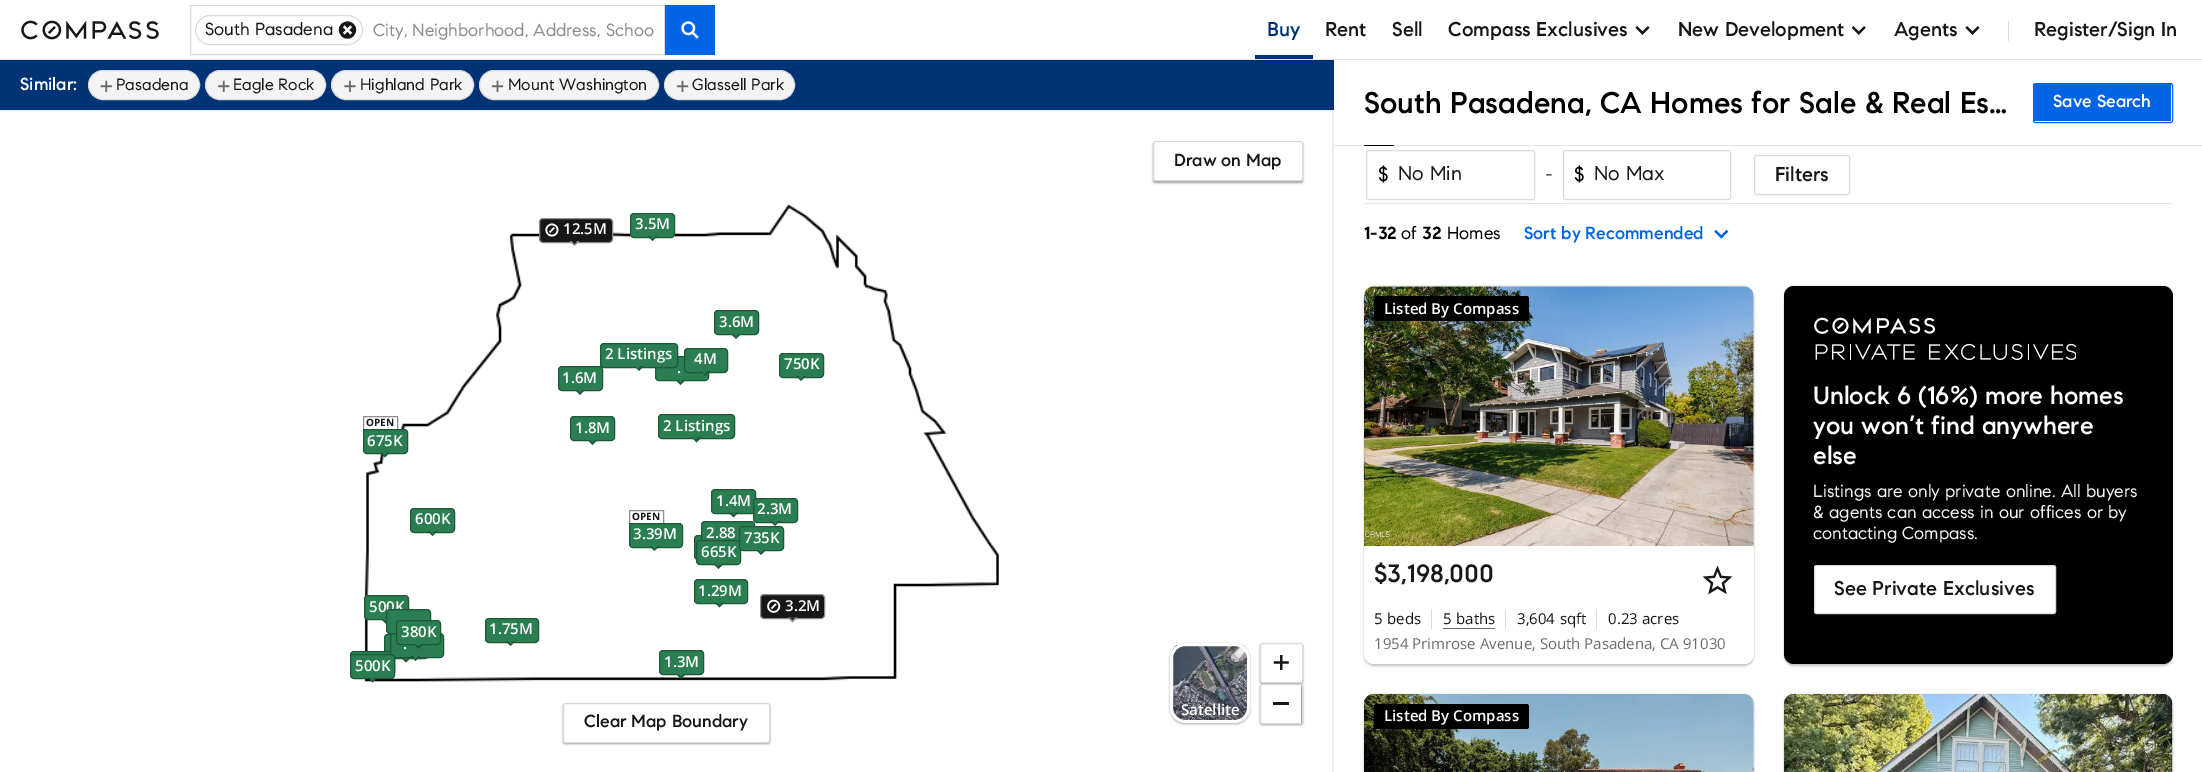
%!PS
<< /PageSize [2202 772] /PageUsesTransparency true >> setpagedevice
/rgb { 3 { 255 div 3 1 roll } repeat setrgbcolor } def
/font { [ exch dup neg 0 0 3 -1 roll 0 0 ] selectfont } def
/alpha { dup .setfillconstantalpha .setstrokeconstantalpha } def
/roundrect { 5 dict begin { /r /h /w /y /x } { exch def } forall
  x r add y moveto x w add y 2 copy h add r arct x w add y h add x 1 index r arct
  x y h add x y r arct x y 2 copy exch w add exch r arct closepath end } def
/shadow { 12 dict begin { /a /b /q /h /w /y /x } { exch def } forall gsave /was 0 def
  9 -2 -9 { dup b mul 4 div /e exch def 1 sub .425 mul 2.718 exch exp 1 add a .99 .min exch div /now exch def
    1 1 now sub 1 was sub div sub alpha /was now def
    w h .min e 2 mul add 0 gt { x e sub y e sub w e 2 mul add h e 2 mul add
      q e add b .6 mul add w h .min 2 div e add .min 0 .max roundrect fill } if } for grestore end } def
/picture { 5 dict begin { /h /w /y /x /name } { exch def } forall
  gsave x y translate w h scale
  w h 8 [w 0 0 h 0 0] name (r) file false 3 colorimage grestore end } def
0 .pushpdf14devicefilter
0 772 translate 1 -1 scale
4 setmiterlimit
255 255 255 rgb
0 0 2202 772 rectfill
230 230 230 rgb
0 59 2202 1 rectfill
(img/1.rgb) 21 20 138 20 picture
218 218 218 rgb
190.5 5.5 474 49 rectstroke
195.5 15.5 167 29 14.5 roundrect stroke
(img/2.rgb) 338 21 19 18 picture
0 100 229 rgb
665 5 50 50 rectfill
(img/3.rgb) 681 21 18 18 picture
0 51 117 rgb
1255 55 58 4 rectfill
(img/4.rgb) 1635 26 15 9 picture
(img/5.rgb) 1851 26 15 9 picture
(img/4.rgb) 1965 26 15 9 picture
[
  [2008 21 1 20 220 220 220]
  [0 61 1334 49 0 51 117]
  [0 60 1334 1 0 46 105]
] { aload pop rgb rectfill } forall
244 244 244 rgb
88.5 70.5 111 29 14.5 roundrect gsave fill grestore
218 218 218 rgb
stroke
(img/6.rgb) 100 80 12 12 picture
244 244 244 rgb
205.5 70.5 120 29 14.5 roundrect gsave fill grestore
218 218 218 rgb
stroke
(img/7.rgb) 218 80 12 12 picture
244 244 244 rgb
331.5 70.5 142 29 14.5 roundrect gsave fill grestore
218 218 218 rgb
stroke
(img/8.rgb) 344 80 12 12 picture
244 244 244 rgb
479.5 70.5 179 29 14.5 roundrect gsave fill grestore
218 218 218 rgb
stroke
(img/9.rgb) 491 80 13 12 picture
244 244 244 rgb
664.5 70.5 130 29 14.5 roundrect gsave fill grestore
218 218 218 rgb
stroke
(img/9.rgb) 676 80 13 12 picture
235 235 235 rgb
0 110 moveto 1334 110 lineto 1332 111 lineto 0 111 lineto closepath fill
0.08 alpha
0 0 0 rgb
1334 110 moveto 1334 772 lineto 1332 772 lineto 1332 111 lineto closepath fill
gsave
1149 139 moveto 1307 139 lineto 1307 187 lineto 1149 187 lineto closepath 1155.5 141 moveto 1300.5 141 lineto 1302 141 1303 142 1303 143.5 curveto 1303 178.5 lineto 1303 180 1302 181 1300.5 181 curveto 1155.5 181 lineto 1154 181 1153 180 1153 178.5 curveto 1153 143.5 lineto 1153 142 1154 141 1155.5 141 curveto closepath eoclip newpath
1 alpha
1153 143 150 40 2.5 1 0.4 shadow
grestore
1 alpha
218 218 218 rgb
1153.5 141.5 149 39 2 roundrect stroke
0 0 0 rgb
1170 644 80 80 15 1 0.4 shadow
(img/10.rgb) 1172 645 76 75 picture
255 255 255 rgb
3 setlinewidth
1171.5 644.5 77 77 13.5 roundrect stroke
gsave
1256 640 moveto 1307 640 lineto 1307 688 lineto 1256 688 lineto closepath 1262.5 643 moveto 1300.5 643 lineto 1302 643 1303 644 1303 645.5 curveto 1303 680.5 lineto 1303 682 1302 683 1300.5 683 curveto 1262.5 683 lineto 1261 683 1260 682 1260 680.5 curveto 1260 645.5 lineto 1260 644 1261 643 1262.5 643 curveto closepath eoclip newpath
0 0 0 rgb
1260 644 43 40 2.5 1 0.4 shadow
grestore
218 218 218 rgb
1 setlinewidth
1260.5 643.5 42 39 2 roundrect stroke
(img/11.rgb) 1273 655 16 15 picture
0 0 0 rgb
1260 685 43 40 2.5 1 0.4 shadow
255 255 255 rgb
1261 685 40 38 1 roundrect fill
218 218 218 rgb
1260.5 684.5 42 39 2 roundrect stroke
23 23 23 rgb
1273 702 16 3 rectfill
gsave
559 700 moveto 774 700 lineto 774 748 lineto 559 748 lineto closepath 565.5 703 moveto 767.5 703 lineto 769 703 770 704 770 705.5 curveto 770 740.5 lineto 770 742 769 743 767.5 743 curveto 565.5 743 lineto 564 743 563 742 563 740.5 curveto 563 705.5 lineto 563 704 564 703 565.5 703 curveto closepath eoclip newpath
0 0 0 rgb
563 704 207 40 2.5 1 0.4 shadow
grestore
218 218 218 rgb
563.5 703.5 206 39 2 roundrect stroke
(img/12.rgb) 364 204 635 478 picture
23 23 23 rgb
539.5 218.5 73 24 3.5 roundrect gsave fill grestore
141 141 141 rgb
stroke
(img/13.rgb) 545 223 14 14 picture
569.5 241 moveto 579.5 241 lineto 574.5 246 lineto closepath fill
23 23 23 rgb
572 241 moveto 577 241 lineto 574.5 244 lineto closepath fill
42 126 81 rgb
630.5 213.5 44 24 3.5 roundrect gsave fill grestore
30 88 57 rgb
stroke
647.5 236 moveto 657.5 236 lineto 652.5 241 lineto closepath fill
42 126 81 rgb
650 236 moveto 655 236 lineto 652.5 239 lineto closepath fill
714.5 310.5 44 24 3.5 roundrect gsave fill grestore
30 88 57 rgb
stroke
731 334 moveto 741 334 lineto 736 339 lineto closepath fill
42 126 81 rgb
733.5 334 moveto 738.5 334 lineto 736 336 lineto closepath fill
558.5 366.5 44 24 3.5 roundrect gsave fill grestore
30 88 57 rgb
stroke
42 126 81 rgb
655.5 356.5 53 24 3.5 roundrect gsave fill grestore
30 88 57 rgb
stroke
42 126 81 rgb
600.5 343.5 77 24 3.5 roundrect gsave fill grestore
30 88 57 rgb
stroke
634 366 moveto 644 366 lineto 639 371 lineto closepath fill
42 126 81 rgb
635 366 moveto 640 366 lineto 637.5 369 lineto closepath fill
684.5 348.5 43 24 3.5 roundrect gsave fill grestore
30 88 57 rgb
stroke
700.5 371 moveto 710.5 371 lineto 705.5 376 lineto closepath fill
42 126 81 rgb
702 371 moveto 707 371 lineto 704.5 374 lineto closepath fill
779.5 353.5 44 24 3.5 roundrect gsave fill grestore
30 88 57 rgb
stroke
796 376 moveto 806 376 lineto 801 381 lineto closepath fill
42 126 81 rgb
798.5 376 moveto 803.5 376 lineto 801 379 lineto closepath fill
30 88 57 rgb
575 390 moveto 585 390 lineto 580 395 lineto closepath fill
42 126 81 rgb
577.5 390 moveto 582.5 390 lineto 580 392.5 lineto closepath fill
30 88 57 rgb
675.5 380 moveto 685.5 380 lineto 680.5 385 lineto closepath fill
42 126 81 rgb
678 380 moveto 683 380 lineto 680.5 382.5 lineto closepath fill
141 141 141 rgb
364 416.5 moveto 397 416.5 lineto 397.5 416.5 397.5 416.5 397.5 417 curveto 397.5 429.5 lineto 363.5 429.5 lineto 363.5 417 lineto 363.5 416.5 363.5 416.5 364 416.5 curveto closepath stroke
42 126 81 rgb
363.5 429.5 moveto 404 429.5 lineto 406 429.5 407.5 431 407.5 433 curveto 407.5 450 lineto 407.5 452 406 453.5 404 453.5 curveto 367 453.5 lineto 365 453.5 363.5 452 363.5 450 curveto closepath gsave fill grestore
30 88 57 rgb
stroke
380 452.5 moveto 390 452.5 lineto 385 457.5 lineto closepath fill
42 126 81 rgb
382.5 452.5 moveto 387.5 452.5 lineto 385 455 lineto closepath fill
570.5 416.5 44 24 3.5 roundrect gsave fill grestore
30 88 57 rgb
stroke
587.5 440 moveto 597.5 440 lineto 592.5 445 lineto closepath fill
42 126 81 rgb
590 440 moveto 595 440 lineto 592.5 442.5 lineto closepath fill
658.5 414.5 76 24 3.5 roundrect gsave fill grestore
30 88 57 rgb
stroke
691.5 437.5 moveto 701.5 437.5 lineto 696.5 442.5 lineto closepath fill
42 126 81 rgb
692.5 437.5 moveto 697.5 437.5 lineto 695 440 lineto closepath fill
711.5 489.5 44 24 3.5 roundrect gsave fill grestore
30 88 57 rgb
stroke
728.5 512.5 moveto 738.5 512.5 lineto 733.5 517.5 lineto closepath fill
42 126 81 rgb
731 512.5 moveto 736 512.5 lineto 733.5 515 lineto closepath fill
753.5 498.5 44 24 3.5 roundrect gsave fill grestore
30 88 57 rgb
stroke
770 521 moveto 780 521 lineto 775 526 lineto closepath fill
42 126 81 rgb
772.5 521 moveto 777.5 521 lineto 775 524 lineto closepath fill
410.5 508.5 44 24 3.5 roundrect gsave fill grestore
30 88 57 rgb
stroke
427.5 531 moveto 437.5 531 lineto 432.5 536 lineto closepath fill
42 126 81 rgb
430 531 moveto 435 531 lineto 432.5 534 lineto closepath fill
141 141 141 rgb
630 510.5 moveto 663 510.5 lineto 663.5 510.5 663.5 510.5 663.5 511 curveto 663.5 523.5 lineto 629.5 523.5 lineto 629.5 511 lineto 629.5 510.5 629.5 510.5 630 510.5 curveto closepath stroke
42 126 81 rgb
629.5 523.5 moveto 679 523.5 lineto 681 523.5 682.5 525 682.5 527 curveto 682.5 544 lineto 682.5 546 681 547.5 679 547.5 curveto 633 547.5 lineto 631 547.5 629.5 546 629.5 544 curveto closepath gsave fill grestore
30 88 57 rgb
stroke
649.5 546 moveto 659.5 546 lineto 654.5 551 lineto closepath fill
42 126 81 rgb
652 546 moveto 657 546 lineto 654.5 549 lineto closepath fill
694.5 535.5 44 24 3.5 roundrect gsave fill grestore
30 88 57 rgb
stroke
42 126 81 rgb
701.5 521.5 53 24 3.5 roundrect gsave fill grestore
30 88 57 rgb
stroke
42 126 81 rgb
696.5 540.5 44 24 3.5 roundrect gsave fill grestore
30 88 57 rgb
stroke
42 126 81 rgb
739.5 526.5 44 24 3.5 roundrect gsave fill grestore
30 88 57 rgb
stroke
756 550 moveto 766 550 lineto 761 555 lineto closepath fill
42 126 81 rgb
758.5 550 moveto 763.5 550 lineto 761 552.5 lineto closepath fill
30 88 57 rgb
713.5 564 moveto 723.5 564 lineto 718.5 569 lineto closepath fill
42 126 81 rgb
716 564 moveto 721 564 lineto 718.5 566 lineto closepath fill
694.5 579.5 53 24 3.5 roundrect gsave fill grestore
30 88 57 rgb
stroke
714.5 602.5 moveto 724.5 602.5 lineto 719.5 607.5 lineto closepath fill
42 126 81 rgb
717 602.5 moveto 722 602.5 lineto 719.5 605 lineto closepath fill
364.5 595.5 44 24 3.5 roundrect gsave fill grestore
30 88 57 rgb
stroke
381 619 moveto 391 619 lineto 386 624 lineto closepath fill
42 126 81 rgb
383.5 619 moveto 388.5 619 lineto 386 621 lineto closepath fill
23 23 23 rgb
760.5 594.5 64 24 3.5 roundrect gsave fill grestore
141 141 141 rgb
stroke
(img/14.rgb) 767 599 14 14 picture
787.5 617.5 moveto 797.5 617.5 lineto 792.5 622.5 lineto closepath fill
23 23 23 rgb
790 617.5 moveto 795 617.5 lineto 792.5 620 lineto closepath fill
42 126 81 rgb
485.5 618.5 53 24 3.5 roundrect gsave fill grestore
30 88 57 rgb
stroke
505.5 641 moveto 515.5 641 lineto 510.5 646 lineto closepath fill
42 126 81 rgb
508 641 moveto 513 641 lineto 510.5 644 lineto closepath fill
384.5 634.5 44 24 3.5 roundrect gsave fill grestore
30 88 57 rgb
stroke
401 657.5 moveto 411 657.5 lineto 406 662.5 lineto closepath fill
42 126 81 rgb
403.5 657.5 moveto 408.5 657.5 lineto 406 660 lineto closepath fill
350.5 651.5 44 24 3.5 roundrect gsave fill grestore
30 88 57 rgb
stroke
42 126 81 rgb
659.5 650.5 44 24 3.5 roundrect gsave fill grestore
30 88 57 rgb
stroke
676 674 moveto 686 674 lineto 681 679 lineto closepath fill
42 126 81 rgb
678.5 674 moveto 683.5 674 lineto 681 676 lineto closepath fill
230 230 230 rgb
1334 145 868 1 rectfill
0 100 229 rgb
2034 84 137 37 1 roundrect fill
2033.5 83.5 139 39 2 roundrect stroke
0 0 0 rgb
1364 145 30 1 rectfill
218 218 218 rgb
1366.5 150.5 168 49 2 roundrect stroke
1563.5 150.5 167 49 2 roundrect stroke
1754.5 155.5 95 39 2 roundrect stroke
230 230 230 rgb
1364 203 809 1 rectfill
(img/15.rgb) 1714 229 15 10 picture
0 0 0 rgb
1364 285 390 378 10 0.5 0.06 shadow
1364 289 390 377 10 0.5 0.14 shadow
1365 291 388 375 9 2.5 0.1 shadow
255 255 255 rgb
1364 286 390 378 10 roundrect fill
218 218 218 rgb
1374 286 moveto 1744 286 lineto 1749.5 286 1754 290.5 1754 296 curveto 1754 546 lineto 1364 546 lineto 1364 296 lineto 1364 290.5 1368.5 286 1374 286 curveto closepath fill
(img/16.rgb) 1364 286 390 261 picture
0 0 0 rgb
1374 296 155 25 2.5 roundrect fill
(img/17.rgb) 1702 565 31 30 picture
[
  [1431 609 1 20 218 218 218]
  [1443 628 52 1 108 108 108]
  [1505 609 1 20 218 218 218]
  [1596 609 1 20 218 218 218]
] { aload pop rgb rectfill } forall
0 0 0 rgb
1784 285 389 378 10 0.5 0.06 shadow
1784 289 389 377 10 0.5 0.14 shadow
1785 291 386 375 9 2.5 0.1 shadow
1784 286 389 378 10 roundrect fill
(img/18.rgb) 1814 317 262 43 picture
255 255 255 rgb
1815 566 240 47 1 roundrect fill
218 218 218 rgb
1814.5 565.5 241 48 2 roundrect stroke
0 0 0 rgb
1364 693 390 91 10 0.5 0.06 shadow
1364 696 390 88 10 0.5 0.14 shadow
1365 699 388 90 9 2.5 0.1 shadow
218 218 218 rgb
1374 694 moveto 1744 694 lineto 1749.5 694 1754 698.5 1754 704 curveto 1754 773 lineto 1364 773 lineto 1364 704 lineto 1364 698.5 1368.5 694 1374 694 curveto closepath fill
(img/19.rgb) 1364 694 390 78 picture
0 0 0 rgb
1374 704 155 25 2.5 roundrect fill
1784 693 389 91 10 0.5 0.06 shadow
1784 696 389 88 10 0.5 0.14 shadow
1785 699 386 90 9 2.5 0.1 shadow
218 218 218 rgb
1794 694 moveto 2163 694 lineto 2168.5 694 2173 698.5 2173 704 curveto 2173 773 lineto 1784 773 lineto 1784 704 lineto 1784 698.5 1788.5 694 1794 694 curveto closepath fill
(img/20.rgb) 1784 694 389 78 picture
/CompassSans-Regular 17.5 font
23 23 23 rgb
205 35 moveto (South Pasadena) show
141 141 141 rgb
373 36 moveto (City, Neighborhood, Address, Schoo) show
/CompassSans-Medium 20 font
0 51 117 rgb
1267 36 moveto (Buy) show
23 23 23 rgb
[
  [(Rent) 1325 36]
  [(Sell) 1392 36]
  [(Compass Exclusives) 1448 36]
  [(New Development) 1678 36]
  [(Agents) 1894 36]
  [(Register/Sign In) 2034 36]
] { aload pop moveto show } forall
/CompassSans-Medium 17.5 font
255 255 255 rgb
20 90 moveto (Similar:) show
/CompassSans-Regular 16.25 font
23 23 23 rgb
[
  [(Pasadena) 116 90]
  [(Eagle Rock) 233 90]
  [(Highland Park) 360 90]
  [(Mount Washington) 508 90]
  [(Glassell Park) 692 90]
] { aload pop moveto show } forall
/CompassSans-Medium 17.5 font
1174 166 moveto (Draw on Map) show
/OpenSans-SemiBold 15 font
255 255 255 rgb
1181 715 moveto (Satellite) show
/CompassSans-Medium 17.5 font
23 23 23 rgb
584 727 moveto (Clear Map Boundary) show
/OpenSans-SemiBold 15 font
255 255 255 rgb
[
  [(12.5M) 563 234]
  [(3.5M) 635 229]
  [(3.6M) 719 327]
  [(2 Listings) 605 359]
  [(4M) 694 364]
  [(750K) 784 369]
  [(1.6M) 562 383]
  [(.) 677 373]
] { aload pop moveto show } forall
/OpenSans-Bold 10 font
23 23 23 rgb
366 426 moveto (OPEN) show
/OpenSans-SemiBold 15 font
255 255 255 rgb
[
  [(675K) 367 446]
  [(1.8M) 575 433]
  [(2 Listings) 663 431]
  [(1.4M) 716 506]
  [(2.3M) 757 514]
  [(600K) 415 524]
] { aload pop moveto show } forall
/OpenSans-Bold 10 font
23 23 23 rgb
632 520 moveto (OPEN) show
/OpenSans-SemiBold 15 font
255 255 255 rgb
[
  [(3.39M) 633 539]
  [(2.88) 706 538]
  [(735K) 744 543]
  [(665K) 701 557]
  [(1.29M) 698 596]
  [(500K) 369 612]
  [(3.2M) 785 611]
] { aload pop moveto show } forall
42 126 81 rgb
386.5 609.5 44 24 3.5 roundrect gsave fill grestore
30 88 57 rgb
stroke
255 255 255 rgb
489 634 moveto (1.75M) show
42 126 81 rgb
390.5 633.5 53 24 3.5 roundrect gsave fill grestore
30 88 57 rgb
stroke
42 126 81 rgb
396.5 620.5 44 24 3.5 roundrect gsave fill grestore
30 88 57 rgb
stroke
413.5 644 moveto 423.5 644 lineto 418.5 649 lineto closepath fill
42 126 81 rgb
416 644 moveto 421 644 lineto 418.5 646 lineto closepath fill
255 255 255 rgb
401 637 moveto (380K) show
403 649 moveto (.) show
30 88 57 rgb
410.5 656 moveto 420.5 656 lineto 415.5 661 lineto closepath fill
42 126 81 rgb
413 656 moveto 418 656 lineto 415.5 659 lineto closepath fill
255 255 255 rgb
664 667 moveto (1.3M) show
42 126 81 rgb
350.5 654.5 44 24 3.5 roundrect gsave fill grestore
30 88 57 rgb
stroke
255 255 255 rgb
355 671 moveto (500K) show
30 88 57 rgb
367.5 677.5 moveto 377.5 677.5 lineto 372.5 682.5 lineto closepath fill
42 126 81 rgb
370 677.5 moveto 375 677.5 lineto 372.5 680 lineto closepath fill
/CompassSans-Medium 30 font
0 0 0 rgb
1364 113 moveto (South Pasadena, CA Homes for Sale & Real Es…) show
/CompassSans-Medium 17.5 font
255 255 255 rgb
2053 107 moveto (Save Search) show
/CompassSans-Regular 20 font
0 0 0 rgb
1378 181 moveto ($) show
23 23 23 rgb
1398 180 moveto (No Min) show
108 108 108 rgb
1545 181 moveto (-) show
0 0 0 rgb
1574 181 moveto ($) show
23 23 23 rgb
1594 180 moveto (No Max) show
/CompassSans-Medium 20 font
1775 181 moveto (Filters) show
/CompassSans-Bold 17.5 font
0 0 0 rgb
1364 239 moveto (1-32) show
/CompassSans-Regular 17.5 font
1401 239 moveto (of) show
/CompassSans-Bold 17.5 font
1422 239 moveto (32) show
/CompassSans-Regular 17.5 font
1447 239 moveto (Homes) show
/CompassSans-Medium 17.5 font
0 100 229 rgb
1524 239 moveto (Sort by Recommended) show
/OpenSans-SemiBold 15 font
255 255 255 rgb
1384 314 moveto (Listed By Compass) show
/CompassSans-Medium 25 font
23 23 23 rgb
1374 582 moveto ($3,198,000) show
/OpenSans-Regular 15 font
[
  [(5) 1374 624]
  [(beds) 1387 624]
  [(5) 1443 624]
  [(baths) 1456 624]
  [(3,604) 1517 624]
  [(sqft) 1560 624]
  [(0.23) 1608 624]
  [(acres) 1642 624]
] { aload pop moveto show } forall
108 108 108 rgb
1374 649 moveto (1954 Primrose Avenue, South Pasadena, CA 91030) show
/CompassSans-Medium 25 font
255 255 255 rgb
[
  [(Unlock 6 \(16%\) more homes) 1813 404]
  [(you won’t find anywhere) 1813 434]
  [(else) 1813 464]
] { aload pop moveto show } forall
/CompassSans-Regular 17.5 font
244 244 244 rgb
[
  [(Listings are only private online. All buyers) 1813 497]
  [(& agents can access in our offices or by) 1813 518]
  [(contacting Compass.) 1813 539]
] { aload pop moveto show } forall
/CompassSans-Medium 20 font
23 23 23 rgb
1834 595 moveto (See Private Exclusives) show
/OpenSans-SemiBold 15 font
255 255 255 rgb
1384 721 moveto (Listed By Compass) show
.poppdf14devicefilter showpage
